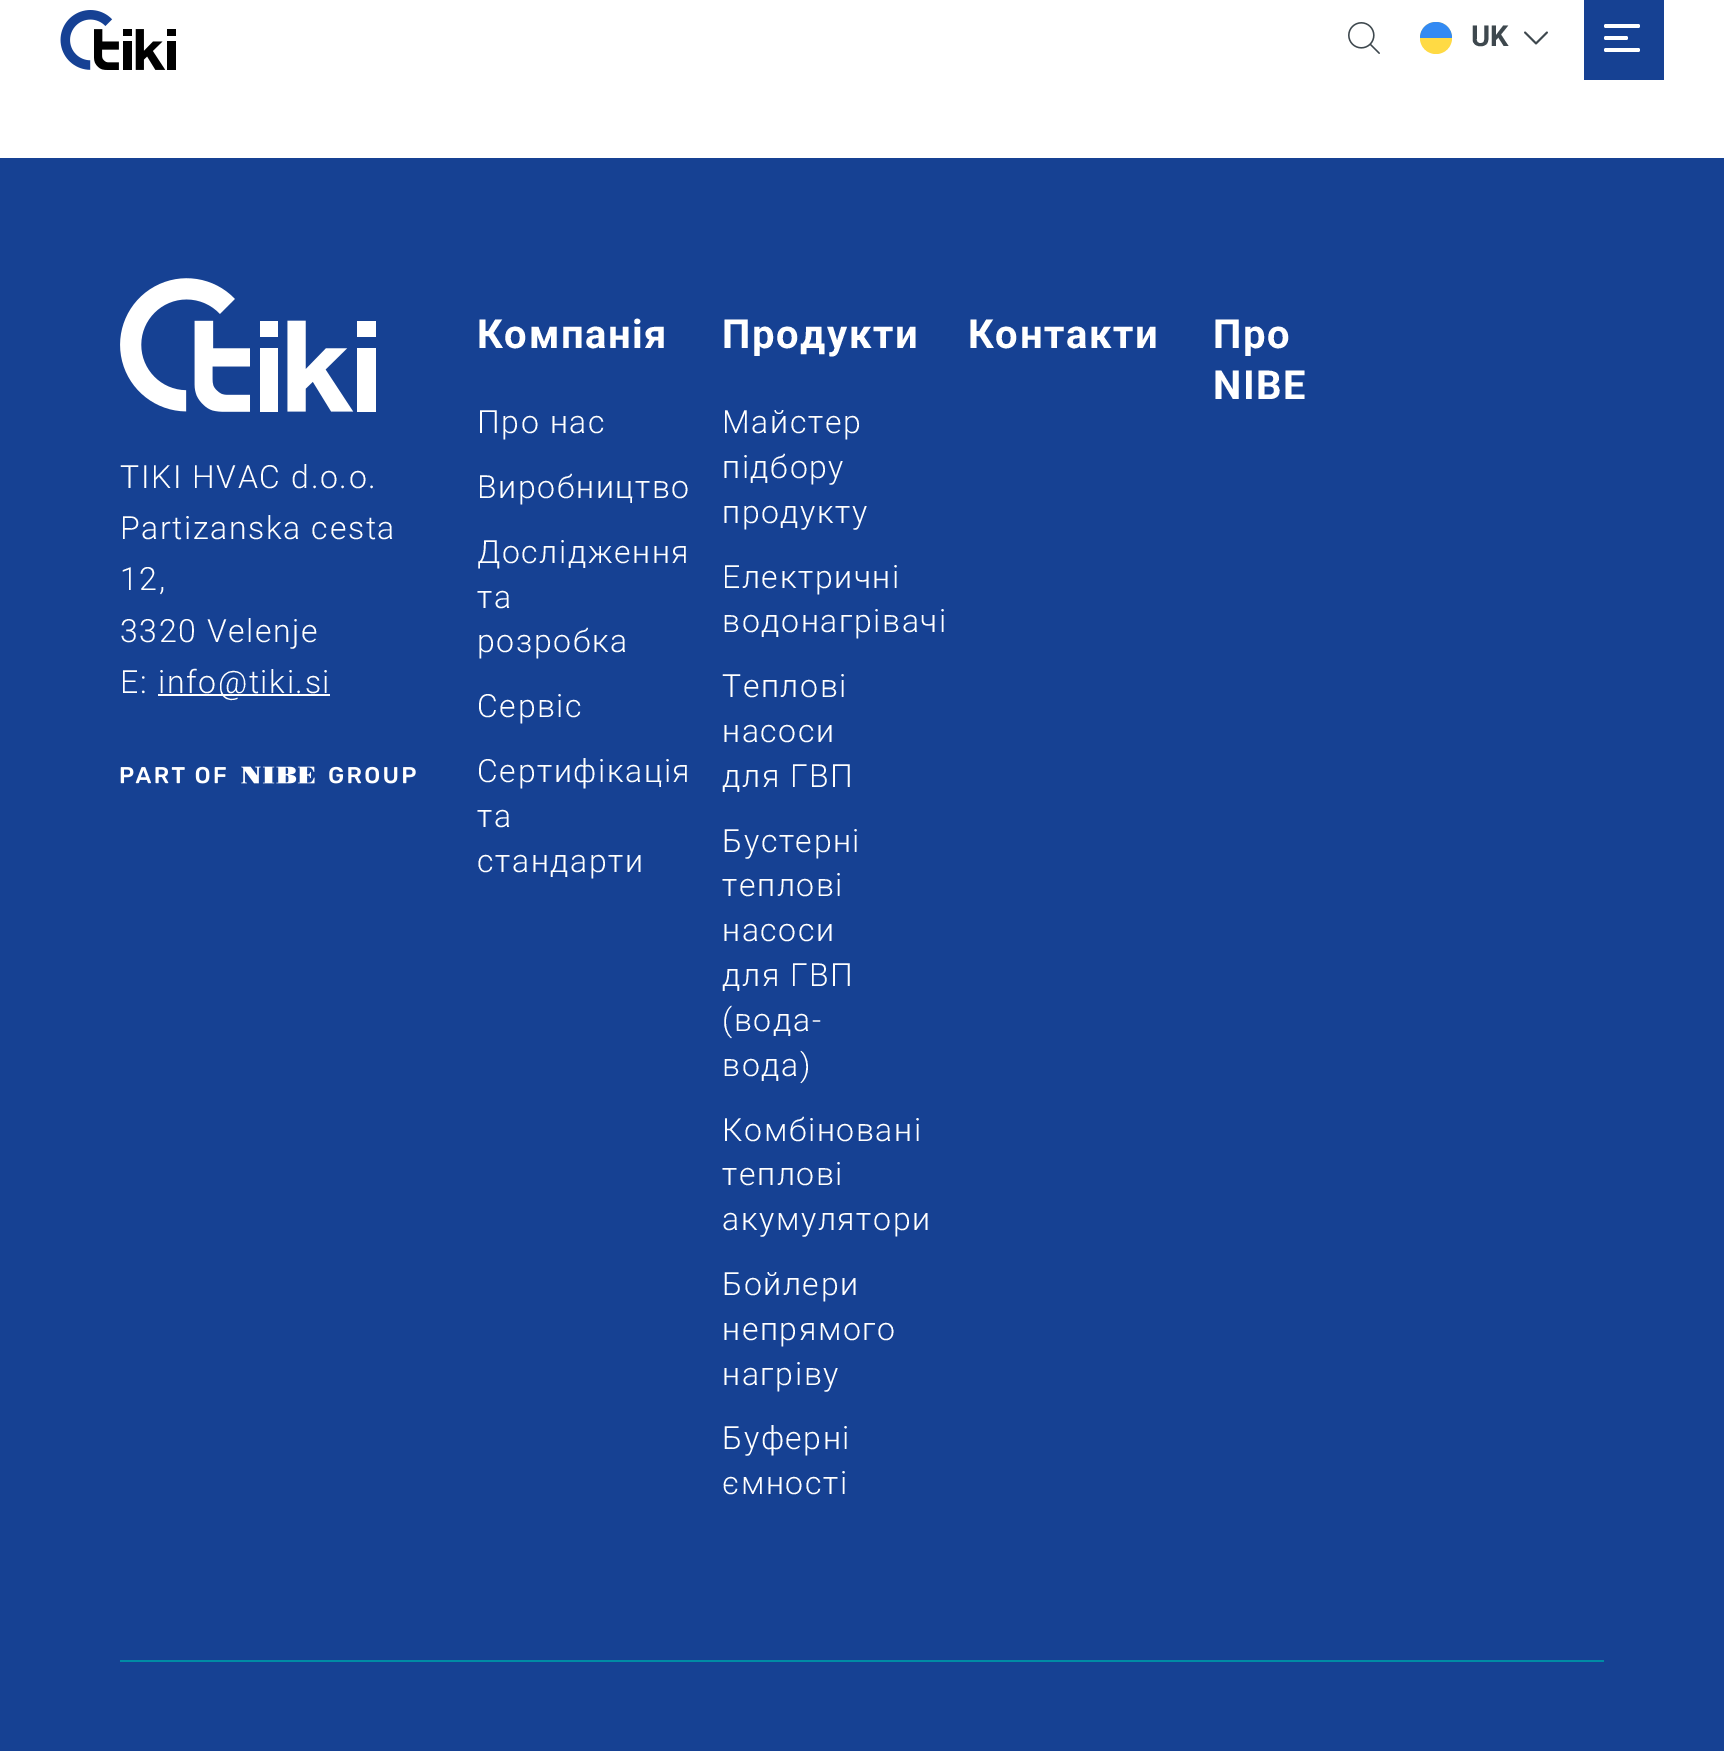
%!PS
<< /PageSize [1724 1751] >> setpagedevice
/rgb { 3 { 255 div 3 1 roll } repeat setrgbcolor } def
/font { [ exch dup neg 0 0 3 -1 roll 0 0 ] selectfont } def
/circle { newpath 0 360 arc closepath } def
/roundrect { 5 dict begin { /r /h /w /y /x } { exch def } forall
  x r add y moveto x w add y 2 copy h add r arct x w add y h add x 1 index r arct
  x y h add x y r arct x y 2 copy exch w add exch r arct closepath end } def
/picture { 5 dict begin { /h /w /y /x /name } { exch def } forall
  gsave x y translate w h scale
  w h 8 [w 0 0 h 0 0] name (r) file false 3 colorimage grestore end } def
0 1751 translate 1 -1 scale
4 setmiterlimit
255 255 255 rgb
0 0 1724 1751 rectfill
(img/1.rgb) 60 10 116 60 picture
(img/2.rgb) 1348 22 32 32 picture
255 218 68 rgb
1436 38 16 circle fill
51 138 243 rgb
1420 38 moveto 1420 29 1427 22 1436 22 curveto 1445 22 1452 29 1452 38 curveto fill
(img/3.rgb) 1524 31 24 14 picture
22 65 147 rgb
1584 0 80 80 rectfill
255 255 255 rgb
1604 36 24 4 2 roundrect fill
1604 24 36 4 2 roundrect fill
1604 48 36 4 2 roundrect fill
22 65 147 rgb
0 158 1724 1593 rectfill
(img/4.rgb) 120 278 256 134 picture
255 255 255 rgb
158 694 172 2 rectfill
(img/5.rgb) 120 766 296 18 picture
0 140 165 rgb
120 1660 1484 2 rectfill
/Roboto-Bold 29 font
62 72 78 rgb
1471 46 moveto (UK) show
/Roboto-Light 32 font
255 255 255 rgb
120 488 moveto 1.6 0 (TIKI HVAC d.o.o.) ashow
120 539 moveto 1.6 0 (Partizanska cesta) ashow
120 590 moveto 1.6 0 (12,) ashow
120 642 moveto 1.6 0 (3320 Velenje) ashow
120 693 moveto 1.6 0 (E:) ashow
158 693 moveto 1.6 0 (info@tiki.si) ashow
/Roboto-Bold 40 font
477 348 moveto 1.6 0 (Компанія) ashow
/Roboto-Light 32 font
477 433 moveto 1.6 0 (Про нас) ashow
477 498 moveto 1.6 0 (Виробництво) ashow
477 563 moveto 1.6 0 (Дослідження) ashow
477 608 moveto 1.6 0 (та) ashow
477 652 moveto 1.6 0 (розробка) ashow
477 717 moveto 1.6 0 (Сервіс) ashow
477 782 moveto 1.6 0 (Сертифікація) ashow
477 827 moveto 1.6 0 (та) ashow
477 872 moveto 1.6 0 (стандарти) ashow
/Roboto-Bold 40 font
722 348 moveto 1.6 0 (Продукти) ashow
/Roboto-Light 32 font
722 433 moveto 1.6 0 (Майстер) ashow
722 478 moveto 1.6 0 (підбору) ashow
722 523 moveto 1.6 0 (продукту) ashow
722 588 moveto 1.6 0 (Електричні) ashow
722 632 moveto 1.6 0 (водонагрівачі) ashow
722 697 moveto 1.6 0 (Теплові) ashow
722 742 moveto 1.6 0 (насоси) ashow
722 787 moveto 1.6 0 (для ГВП) ashow
722 852 moveto 1.6 0 (Бустерні) ashow
722 896 moveto 1.6 0 (теплові) ashow
722 941 moveto 1.6 0 (насоси) ashow
722 986 moveto 1.6 0 (для ГВП) ashow
722 1031 moveto 1.6 0 (\(вода-) ashow
722 1076 moveto 1.6 0 (вода\)) ashow
722 1141 moveto 1.6 0 (Комбіновані) ashow
722 1185 moveto 1.6 0 (теплові) ashow
722 1230 moveto 1.6 0 (акумулятори) ashow
722 1295 moveto 1.6 0 (Бойлери) ashow
722 1340 moveto 1.6 0 (непрямого) ashow
722 1385 moveto 1.6 0 (нагріву) ashow
722 1449 moveto 1.6 0 (Буферні) ashow
722 1494 moveto 1.6 0 (ємності) ashow
/Roboto-Bold 40 font
968 348 moveto 1.6 0 (Контакти) ashow
1213 348 moveto 1.6 0 (Про) ashow
1213 399 moveto 1.6 0 (NIBE) ashow
showpage
